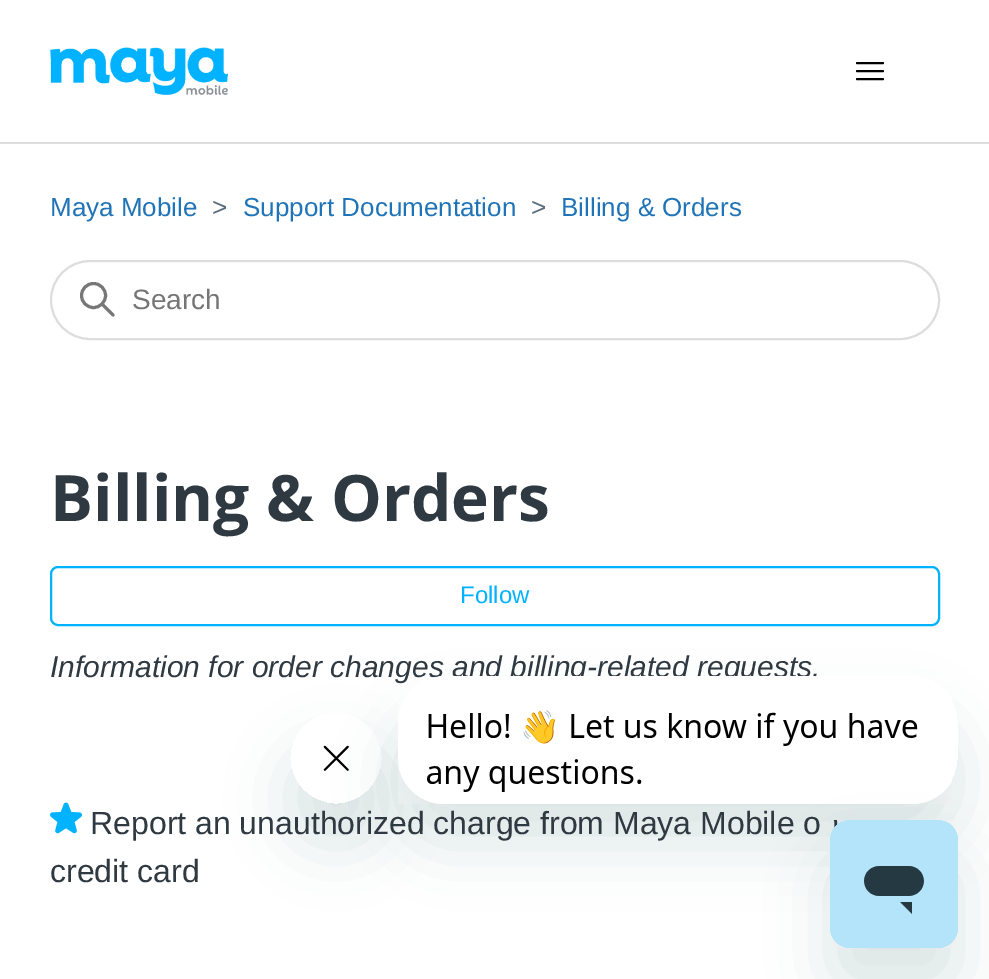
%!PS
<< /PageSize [989 979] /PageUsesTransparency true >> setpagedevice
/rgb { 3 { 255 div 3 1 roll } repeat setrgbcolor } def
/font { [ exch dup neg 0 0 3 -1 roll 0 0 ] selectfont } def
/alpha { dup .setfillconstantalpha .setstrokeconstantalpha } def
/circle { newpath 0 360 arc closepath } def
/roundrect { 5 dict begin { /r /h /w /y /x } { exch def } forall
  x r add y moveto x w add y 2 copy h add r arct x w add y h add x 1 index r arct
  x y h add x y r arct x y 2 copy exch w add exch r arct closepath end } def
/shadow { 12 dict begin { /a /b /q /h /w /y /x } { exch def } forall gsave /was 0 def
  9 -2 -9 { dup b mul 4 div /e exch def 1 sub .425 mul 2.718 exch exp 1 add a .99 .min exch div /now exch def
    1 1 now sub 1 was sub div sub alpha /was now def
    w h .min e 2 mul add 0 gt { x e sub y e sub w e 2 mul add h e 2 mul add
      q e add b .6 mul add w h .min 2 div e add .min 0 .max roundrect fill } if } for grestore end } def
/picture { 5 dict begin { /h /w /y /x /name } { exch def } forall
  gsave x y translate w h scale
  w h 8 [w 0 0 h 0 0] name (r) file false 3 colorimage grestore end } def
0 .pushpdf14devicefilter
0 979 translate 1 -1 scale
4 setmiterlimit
255 255 255 rgb
0 0 989 979 rectfill
(img/1.rgb) 50 47 178 48 picture
0 0 0 rgb
2 setlinewidth
1 setlinecap
857 63 moveto 883 63 lineto 857 71 moveto 883 71 lineto 857 79 moveto 883 79 lineto stroke
221 221 221 rgb
0 142 989 2 rectfill
0 setlinecap
51 261 888 78 39 roundrect stroke
119 119 119 rgb
3 setlinewidth
93.5 295.5 12 circle stroke
1 setlinecap
113 315 moveto 102.5 304.5 lineto stroke
0 178 255 rgb
2 setlinewidth
0 setlinecap
51 567 888 58 7 roundrect stroke
(img/2.rgb) 50 802 32 32 picture
gsave
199 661 moveto 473 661 lineto 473 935 lineto 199 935 lineto closepath 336 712 moveto 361.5 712 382 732.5 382 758 curveto 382 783.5 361.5 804 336 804 curveto 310.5 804 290 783.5 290 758 curveto 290 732.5 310.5 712 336 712 curveto closepath eoclip newpath
23 73 77 rgb
290 752 92 92 46 30 0.15 shadow
grestore
(img/4.rgb) 323 745 26 26 picture
gsave
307 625 moveto 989 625 lineto 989 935 lineto 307 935 lineto closepath 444 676 moveto 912 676 lineto 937.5 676 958 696.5 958 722 curveto 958 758 lineto 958 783.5 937.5 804 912 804 curveto 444 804 lineto 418.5 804 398 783.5 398 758 curveto 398 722 lineto 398 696.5 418.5 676 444 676 curveto closepath eoclip newpath
23 73 77 rgb
398 716 560 128 46 30 0.15 shadow
grestore
/LiberationSans-Regular 26 font
31 115 183 rgb
50 216 moveto (Maya Mobile) show
90 109 124 rgb
212 216 moveto (>) show
31 115 183 rgb
243 216 moveto (Support Documentation) show
90 109 124 rgb
531 216 moveto (>) show
31 115 183 rgb
561 216 moveto (Billing & Orders) show
/LiberationSans-Regular 28 font
117 117 117 rgb
132 309 moveto (Search) show
/OpenSans-Bold 64 font
47 57 65 rgb
50 521 moveto (Billing & Orders) show
/LiberationSans-Regular 24 font
0 178 255 rgb
460 603 moveto (Follow) show
/LiberationSans-Italic 30 font
47 57 65 rgb
50 677 moveto (Information for order changes and billing-related requests.) show
/LiberationSans-Regular 32 font
90 834 moveto (Report an unauthorized charge from Maya Mobile o) show
50 882 moveto (credit card) show
(img/3.rgb) 398 676 554 128 picture
23 73 77 rgb
830 860 128 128 20 30 0.15 shadow
(img/5.rgb) 830 820 128 128 picture
.poppdf14devicefilter showpage
